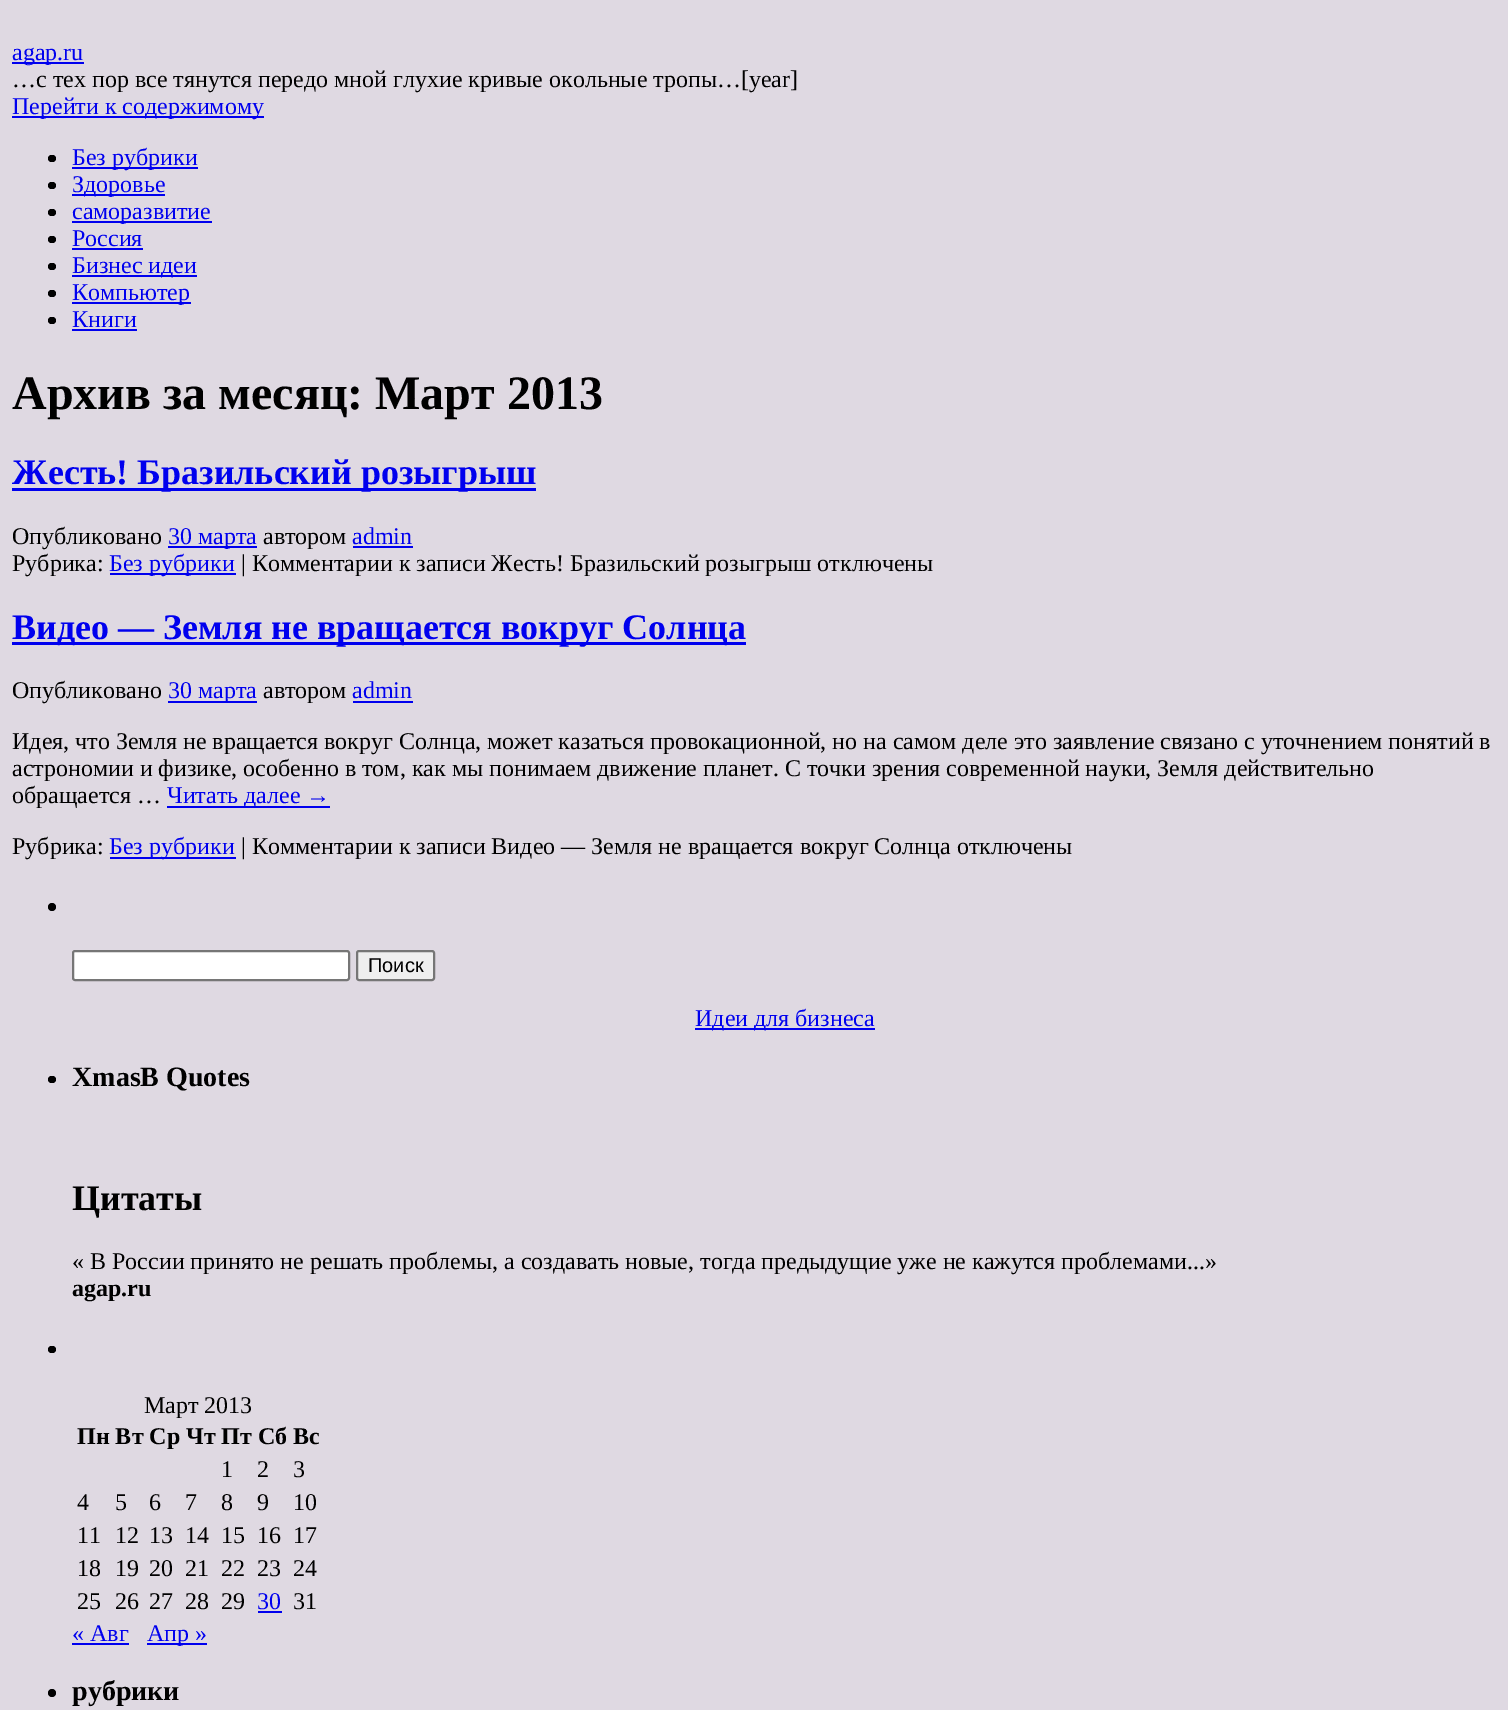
%!PS
<< /PageSize [1508 1710] >> setpagedevice
/rgb { 3 { 255 div 3 1 roll } repeat setrgbcolor } def
/font { [ exch dup neg 0 0 3 -1 roll 0 0 ] selectfont } def
/circle { newpath 0 360 arc closepath } def
/roundrect { 5 dict begin { /r /h /w /y /x } { exch def } forall
  x r add y moveto x w add y 2 copy h add r arct x w add y h add x 1 index r arct
  x y h add x y r arct x y 2 copy exch w add exch r arct closepath end } def
0 1710 translate 1 -1 scale
4 setmiterlimit
223 217 226 rgb
0 0 1508 1710 rectfill
0 0 238 rgb
12 62 72 2 rectfill
12 116 252 2 rectfill
0 0 0 rgb
48 155 8 7 3.5 roundrect fill
0 0 238 rgb
72 167 126 2 rectfill
0 0 0 rgb
48 182 8 7 3.5 roundrect fill
0 0 238 rgb
72 194 93 2 rectfill
0 0 0 rgb
48 209 8 7 3.5 roundrect fill
0 0 238 rgb
72 221 140 2 rectfill
0 0 0 rgb
48 236 8 7 3.5 roundrect fill
0 0 238 rgb
72 248 71 2 rectfill
0 0 0 rgb
48 263 8 7 3.5 roundrect fill
0 0 238 rgb
72 275 125 2 rectfill
0 0 0 rgb
48 290 8 7 3.5 roundrect fill
0 0 238 rgb
72 302 119 2 rectfill
0 0 0 rgb
48 317 8 7 3.5 roundrect fill
[
  [72 329 65 2 0 0 238]
  [12 488 524 3 0 0 238]
  [168 546 89 2 0 0 238]
  [353 546 60 2 0 0 238]
  [110 573 126 2 0 0 238]
  [12 642 734 3 0 0 238]
  [168 701 89 2 0 0 238]
  [353 701 60 2 0 0 238]
  [167 806 163 2 0 0 238]
  [110 857 126 2 0 0 238]
] { aload pop rgb rectfill } forall
0 0 0 rgb
52 907 4 circle fill
255 255 255 rgb
73 951 276 29 2 roundrect gsave fill grestore
118 118 118 rgb
2 setlinewidth
stroke
239 239 239 rgb
357 951 77 29 2 roundrect gsave fill grestore
118 118 118 rgb
stroke
0 0 238 rgb
695 1028 180 2 rectfill
0 0 0 rgb
48 1076 8 7 3.5 roundrect fill
48 1346 8 7 3.5 roundrect fill
[
  [258 1611 24 2 0 0 238]
  [72 1643 57 2 0 0 238]
  [147 1643 60 2 0 0 238]
] { aload pop rgb rectfill } forall
0 0 0 rgb
52 1693 4 circle fill
/LiberationSerif-Regular 24 font
0 0 238 rgb
12 60 moveto (agap.ru) show
0 0 0 rgb
12 87 moveto (…с тех пор все тянутся передо мной глухие кривые окольные тропы…[year]) show
0 0 238 rgb
[
  [(Перейти к содержимому) 12 114]
  [(Без рубрики) 72 165]
  [(Здоровье) 72 192]
  [(саморазвитие) 72 219]
  [(Россия) 72 246]
  [(Бизнес идеи) 72 273]
  [(Компьютер) 72 300]
  [(Книги) 72 327]
] { aload pop moveto show } forall
/LiberationSerif-Bold 48 font
0 0 0 rgb
12 409 moveto (Архив за месяц: Март 2013) show
/LiberationSerif-Bold 36 font
0 0 238 rgb
12 484 moveto (Жесть! Бразильский розыгрыш) show
/LiberationSerif-Regular 24 font
0 0 0 rgb
12 544 moveto (Опубликовано) show
0 0 238 rgb
168 544 moveto (30 марта) show
0 0 0 rgb
263 544 moveto (автором) show
0 0 238 rgb
352 544 moveto (admin) show
0 0 0 rgb
12 571 moveto (Рубрика:) show
0 0 238 rgb
109 571 moveto (Без рубрики) show
0 0 0 rgb
241 571 moveto (| Комментарии к записи Жесть! Бразильский розыгрыш отключены) show
/LiberationSerif-Bold 36 font
0 0 238 rgb
12 639 moveto (Видео — Земля не вращается вокруг Солнца) show
/LiberationSerif-Regular 24 font
0 0 0 rgb
12 698 moveto (Опубликовано) show
0 0 238 rgb
168 698 moveto (30 марта) show
0 0 0 rgb
263 698 moveto (автором) show
0 0 238 rgb
352 698 moveto (admin) show
0 0 0 rgb
[
  [(Идея, что Земля не вращается вокруг Солнца, может казаться провокационной, но на самом деле это заявление связано с уточнением понятий в) 12 749]
  [(астрономии и физике, особенно в том, как мы понимаем движение планет. С точки зрения современной науки, Земля действительно) 12 776]
  [(обращается …) 12 803]
] { aload pop moveto show } forall
0 0 238 rgb
167 803 moveto (Читать далее →) show
0 0 0 rgb
12 854 moveto (Рубрика:) show
0 0 238 rgb
109 854 moveto (Без рубрики) show
0 0 0 rgb
241 854 moveto (| Комментарии к записи Видео — Земля не вращается вокруг Солнца отключены) show
/LiberationSans-Regular 20 font
368 972 moveto (Поиск) show
/LiberationSerif-Regular 24 font
0 0 238 rgb
695 1026 moveto (Идеи для бизнеса) show
/LiberationSerif-Bold 28 font
0 0 0 rgb
72 1086 moveto (XmasB Quotes) show
/LiberationSerif-Bold 36 font
72 1210 moveto (Цитаты) show
/LiberationSerif-Regular 24 font
72 1269 moveto (« В России принято не решать проблемы, а создавать новые, тогда предыдущие уже не кажутся проблемами...») show
/LiberationSerif-Bold 24 font
72 1296 moveto (agap.ru) show
/LiberationSerif-Regular 24 font
144 1413 moveto (Март 2013) show
/LiberationSerif-Bold 24 font
77 1444 moveto (Пн Вт Ср Чт Пт Сб Вс) show
/LiberationSerif-Regular 24 font
[
  [(1) 221 1477]
  [(2) 257 1477]
  [(3) 293 1477]
  [(4) 77 1510]
  [(5) 115 1510]
  [(6) 149 1510]
  [(7) 185 1510]
  [(8) 221 1510]
  [(9) 257 1510]
  [(10) 293 1510]
  [(11) 77 1543]
  [(12) 115 1543]
  [(13) 149 1543]
  [(14) 185 1543]
  [(15) 221 1543]
  [(16) 257 1543]
  [(17) 293 1543]
  [(18) 77 1576]
  [(19) 115 1576]
  [(20) 149 1576]
  [(21) 185 1576]
  [(22) 221 1576]
  [(23) 257 1576]
  [(24) 293 1576]
  [(25) 77 1609]
  [(26) 115 1609]
  [(27) 149 1609]
  [(28) 185 1609]
  [(29) 221 1609]
] { aload pop moveto show } forall
0 0 238 rgb
257 1609 moveto (30) show
0 0 0 rgb
293 1609 moveto (31) show
0 0 238 rgb
72 1641 moveto (« Авг) show
147 1641 moveto (Апр ») show
/LiberationSerif-Bold 28 font
0 0 0 rgb
72 1700 moveto (рубрики) show
showpage
